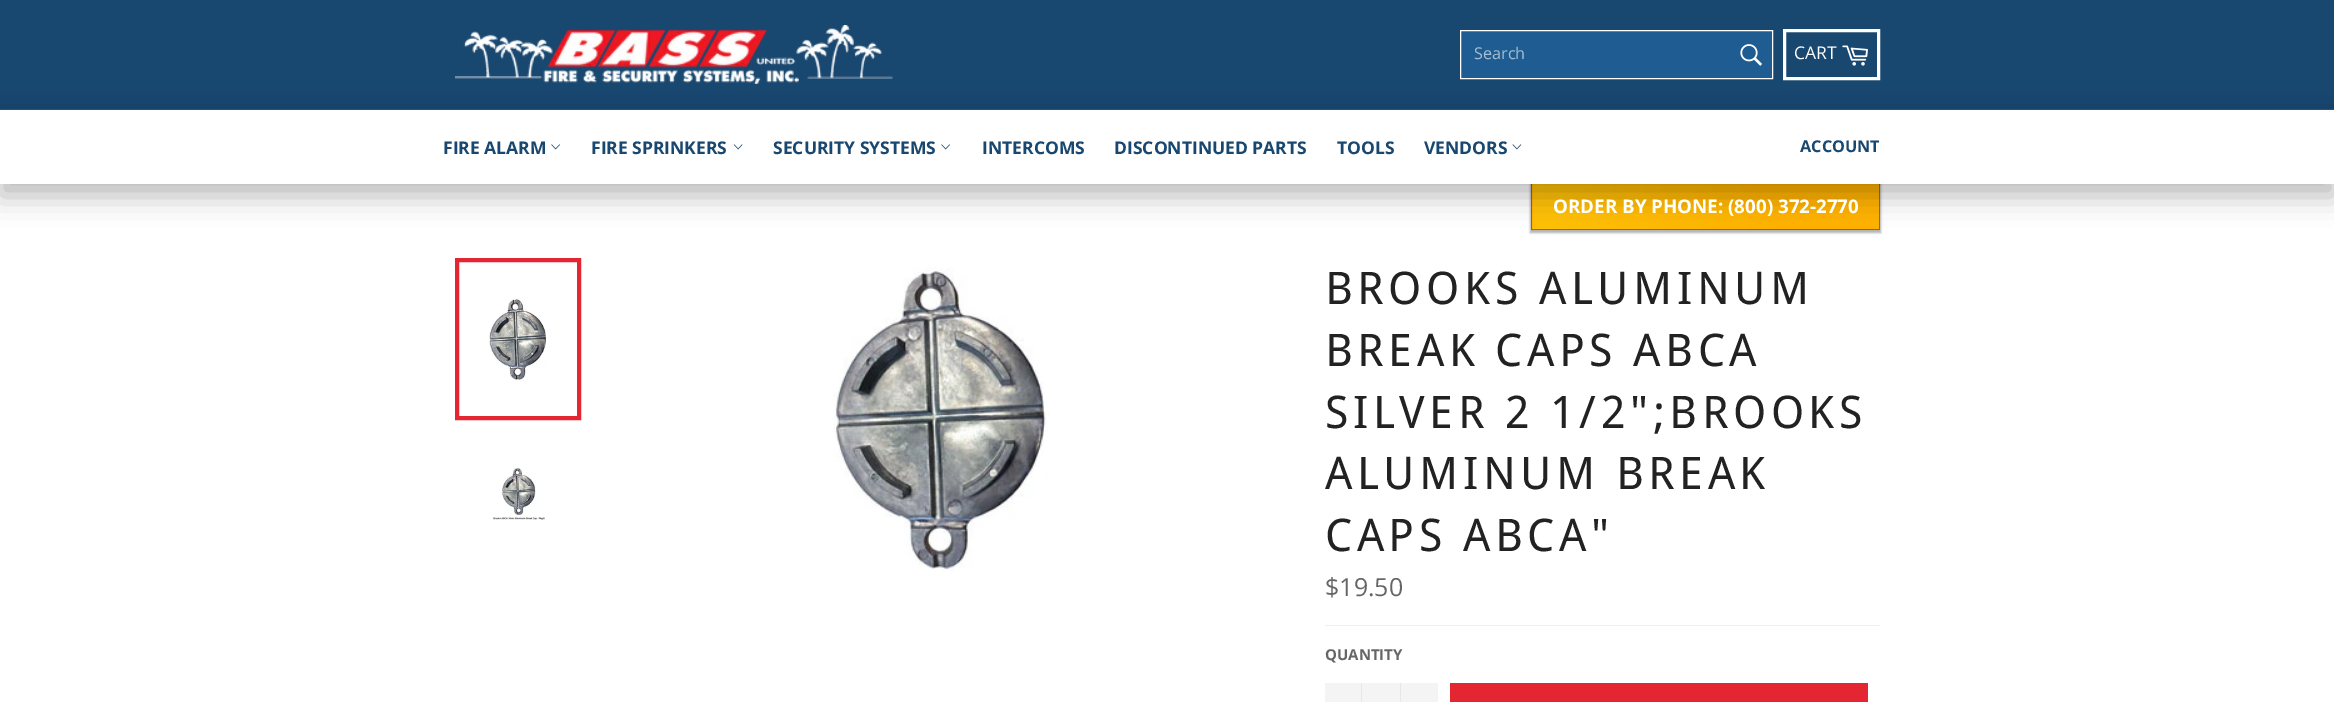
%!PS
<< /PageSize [2334 702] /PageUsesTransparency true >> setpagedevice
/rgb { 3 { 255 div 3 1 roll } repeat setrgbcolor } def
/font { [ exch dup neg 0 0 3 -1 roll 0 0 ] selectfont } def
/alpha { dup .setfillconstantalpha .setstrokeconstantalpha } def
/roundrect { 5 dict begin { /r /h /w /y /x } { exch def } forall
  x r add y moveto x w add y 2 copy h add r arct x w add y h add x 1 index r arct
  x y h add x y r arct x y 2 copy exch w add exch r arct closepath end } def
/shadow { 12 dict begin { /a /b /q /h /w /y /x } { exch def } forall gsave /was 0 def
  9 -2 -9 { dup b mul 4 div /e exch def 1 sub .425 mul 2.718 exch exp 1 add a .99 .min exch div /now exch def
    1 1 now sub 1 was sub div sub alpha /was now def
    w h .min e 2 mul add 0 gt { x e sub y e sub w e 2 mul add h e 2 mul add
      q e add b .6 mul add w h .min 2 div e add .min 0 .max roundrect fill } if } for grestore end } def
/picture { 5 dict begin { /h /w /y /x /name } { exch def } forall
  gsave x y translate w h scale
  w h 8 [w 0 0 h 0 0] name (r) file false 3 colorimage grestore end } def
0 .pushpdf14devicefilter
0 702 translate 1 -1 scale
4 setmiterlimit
24 71 111 rgb
0 0 2334 702 rectfill
(img/1.rgb) 455 25 438 59 picture
31 92 145 rgb
1460.5 30.5 moveto 1772.5 30.5 lineto 1772.5 78.5 lineto 1460.5 78.5 lineto closepath gsave fill grestore
255 255 255 rgb
stroke
(img/2.rgb) 1740 44 22 22 picture
3 setlinewidth
1784.5 30.5 94 48 rectstroke
(img/3.rgb) 1842 45 26 21 picture
0 184 2334 518 rectfill
0 0 0 rgb
1530 183 351 50 0 1 0.3 shadow
gsave 1531 183 moveto 1533 183 lineto 1533 229 lineto 1531 229 lineto closepath clip newpath
<< /ShadingType 2 /ColorSpace /DeviceRGB /Coords [1220 286 1499 125] /Extend [true true] /Function << /FunctionType 3 /Domain [0 1] /Functions [<< /FunctionType 2 /Domain [0 1] /C0 [1 0.757 0.027] /C1 [1 0.694 0] /N 1 >> << /FunctionType 2 /Domain [0 1] /C0 [1 0.694 0] /C1 [1 0.694 0] /N 1 >>] /Bounds [0.7] /Encode [0 1 0 1] >> >> shfill grestore
gsave 1533 184 moveto 1879 184 lineto 1879 229 lineto 1533 229 lineto closepath clip newpath
<< /ShadingType 2 /ColorSpace /DeviceRGB /Coords [1566 286 1845 125] /Extend [true true] /Function << /FunctionType 3 /Domain [0 1] /Functions [<< /FunctionType 2 /Domain [0 1] /C0 [1 0.757 0.027] /C1 [1 0.694 0] /N 1 >> << /FunctionType 2 /Domain [0 1] /C0 [1 0.694 0] /C1 [1 0.694 0] /N 1 >>] /Bounds [0.7] /Encode [0 1 0 1] >> >> shfill grestore
gsave 1879 183 moveto 1880 183 lineto 1880 229 lineto 1879 229 lineto closepath clip newpath
<< /ShadingType 2 /ColorSpace /DeviceRGB /Coords [1912 286 2192 125] /Extend [true true] /Function << /FunctionType 3 /Domain [0 1] /Functions [<< /FunctionType 2 /Domain [0 1] /C0 [1 0.757 0.027] /C1 [1 0.694 0] /N 1 >> << /FunctionType 2 /Domain [0 1] /C0 [1 0.694 0] /C1 [1 0.694 0] /N 1 >>] /Bounds [0.7] /Encode [0 1 0 1] >> >> shfill grestore
gsave 1531 229 moveto 1533 229 lineto 1533 230 lineto 1531 230 lineto closepath clip newpath
<< /ShadingType 2 /ColorSpace /DeviceRGB /Coords [1220 333 1499 171] /Extend [true true] /Function << /FunctionType 3 /Domain [0 1] /Functions [<< /FunctionType 2 /Domain [0 1] /C0 [1 0.757 0.027] /C1 [1 0.694 0] /N 1 >> << /FunctionType 2 /Domain [0 1] /C0 [1 0.694 0] /C1 [1 0.694 0] /N 1 >>] /Bounds [0.7] /Encode [0 1 0 1] >> >> shfill grestore
gsave 1533 229 moveto 1879 229 lineto 1879 230 lineto 1533 230 lineto closepath clip newpath
<< /ShadingType 2 /ColorSpace /DeviceRGB /Coords [1566 333 1845 171] /Extend [true true] /Function << /FunctionType 3 /Domain [0 1] /Functions [<< /FunctionType 2 /Domain [0 1] /C0 [1 0.757 0.027] /C1 [1 0.694 0] /N 1 >> << /FunctionType 2 /Domain [0 1] /C0 [1 0.694 0] /C1 [1 0.694 0] /N 1 >>] /Bounds [0.7] /Encode [0 1 0 1] >> >> shfill grestore
gsave 1879 229 moveto 1880 229 lineto 1880 230 lineto 1879 230 lineto closepath clip newpath
<< /ShadingType 2 /ColorSpace /DeviceRGB /Coords [1912 333 2192 171] /Extend [true true] /Function << /FunctionType 3 /Domain [0 1] /Functions [<< /FunctionType 2 /Domain [0 1] /C0 [1 0.757 0.027] /C1 [1 0.694 0] /N 1 >> << /FunctionType 2 /Domain [0 1] /C0 [1 0.694 0] /C1 [1 0.694 0] /N 1 >>] /Bounds [0.7] /Encode [0 1 0 1] >> >> shfill grestore
0.4 alpha
1880 182 moveto 1880 230 lineto 1879 229 lineto 1879 182 lineto closepath fill
1880 230 moveto 1531 230 lineto 1532 229 lineto 1879 229 lineto closepath fill
1531 230 moveto 1531 182 lineto 1532 182 lineto 1532 229 lineto closepath fill
1 alpha
0 121 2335 75 0 14 0.27 shadow
29 84 132 rgb
0 109 2334 1 rectfill
255 255 255 rgb
0 110 2334 74 rectfill
(img/4.rgb) 551 144 9 6 picture
(img/5.rgb) 733 144 10 6 picture
(img/4.rgb) 941 144 9 6 picture
(img/6.rgb) 1512 144 10 6 picture
(img/7.rgb) 488 298 59 84 picture
228 37 50 rgb
4 setlinewidth
457 260 122 158 rectstroke
(img/8.rgb) 493 468 52 52 picture
(img/9.rgb) 834 267 215 304 picture
[
  [1325 625 555 1 240 240 240]
  [1325 683 113 19 244 244 244]
  [1361 683 1 19 231 231 231]
  [1400 683 1 19 231 231 231]
  [1450 683 418 19 228 37 50]
] { aload pop rgb rectfill } forall
/OpenSans-Regular 16.25 font
165 190 211 rgb
1474 59 moveto (Search) show
/OpenSans-Regular 17.5 font
255 255 255 rgb
1794 59 moveto (CART) show
/OpenSans-Bold 17.5 font
24 71 111 rgb
[
  [(FIRE ALARM) 443 154]
  [(FIRE SPRINKERS) 591 154]
  [(SECURITY SYSTEMS) 773 154]
  [(INTERCOMS) 982 154]
  [(DISCONTINUED PARTS) 1114 154]
  [(TOOLS) 1337 154]
  [(VENDORS) 1424 154]
] { aload pop moveto show } forall
/OpenSans-Bold 16.25 font
1800 152 moveto (ACCOUNT) show
/OpenSans-Bold 18.75 font
255 255 255 rgb
1553 213 moveto (ORDER BY PHONE: \(800\) 372-2770) show
/DroidSans-Regular 45 font
34 34 34 rgb
1325 304 moveto 4.5 0 (BROOKS ALUMINUM) ashow
1325 366 moveto 4.5 0 (BREAK CAPS ABCA) ashow
1325 428 moveto 4.5 0 (SILVER 2 1/2";BROOKS) ashow
1325 489 moveto 4.5 0 (ALUMINUM BREAK) ashow
1325 551 moveto 4.5 0 (CAPS ABCA") ashow
/OpenSans-Regular 25 font
102 102 102 rgb
1325 596 moveto ($19.50) show
/OpenSans-Bold 15 font
1325 660 moveto (QUANTITY) show
.poppdf14devicefilter showpage
